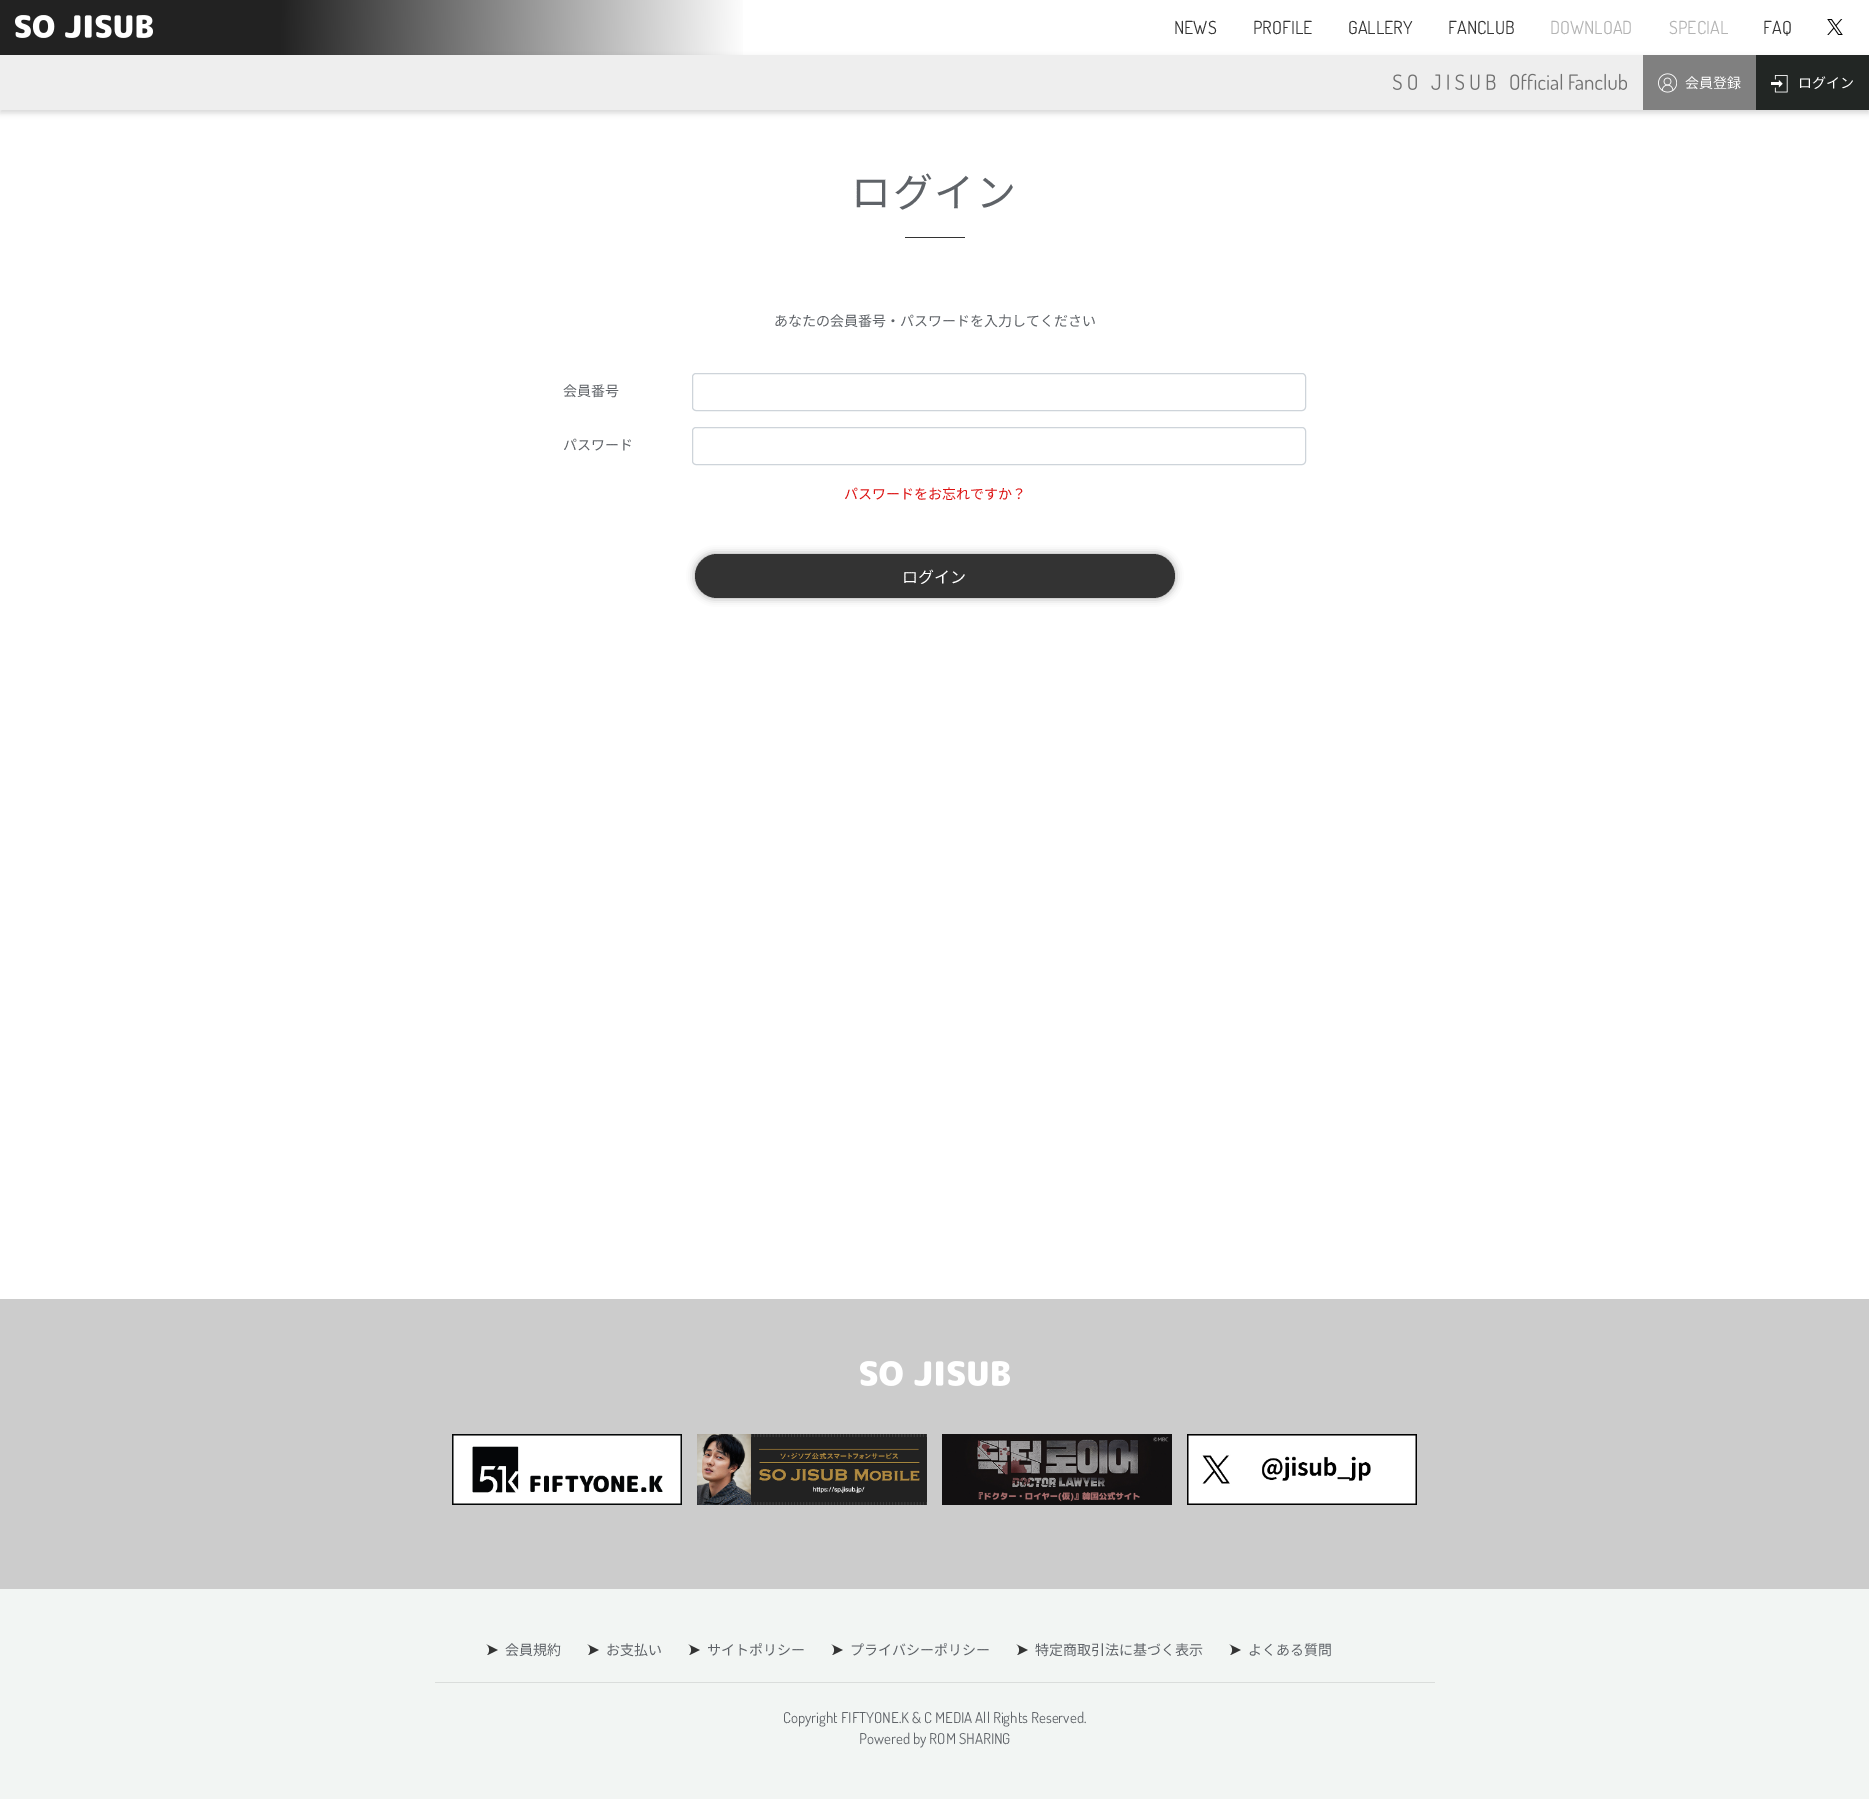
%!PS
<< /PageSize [1869 1799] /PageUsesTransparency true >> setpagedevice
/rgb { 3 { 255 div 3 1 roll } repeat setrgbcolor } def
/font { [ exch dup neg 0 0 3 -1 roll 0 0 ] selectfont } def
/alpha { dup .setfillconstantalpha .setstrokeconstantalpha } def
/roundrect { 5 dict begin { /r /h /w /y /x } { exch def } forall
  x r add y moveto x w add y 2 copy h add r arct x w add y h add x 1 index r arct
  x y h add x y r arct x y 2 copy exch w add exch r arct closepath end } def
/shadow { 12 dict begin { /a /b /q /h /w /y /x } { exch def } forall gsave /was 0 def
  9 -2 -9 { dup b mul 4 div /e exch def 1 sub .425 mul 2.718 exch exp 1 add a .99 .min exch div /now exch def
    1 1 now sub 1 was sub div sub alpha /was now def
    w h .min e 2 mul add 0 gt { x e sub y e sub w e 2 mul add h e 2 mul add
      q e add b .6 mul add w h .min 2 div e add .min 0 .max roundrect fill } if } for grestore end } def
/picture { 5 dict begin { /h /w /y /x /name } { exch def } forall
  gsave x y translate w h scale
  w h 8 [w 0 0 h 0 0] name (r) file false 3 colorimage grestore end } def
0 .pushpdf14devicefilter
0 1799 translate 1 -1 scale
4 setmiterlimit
255 255 255 rgb
0 0 1869 1799 rectfill
gsave 0 0 moveto 743 0 lineto 743 55 lineto 0 55 lineto closepath clip newpath
<< /ShadingType 2 /ColorSpace /DeviceRGB /Coords [-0.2 11 1869 44] /Extend [true true] /Function << /FunctionType 3 /Domain [0 1] /Functions [<< /FunctionType 2 /Domain [0 1] /C0 [0.133 0.133 0.133] /C1 [0.133 0.133 0.133] /N 1 >> << /FunctionType 2 /Domain [0 1] /C0 [0.133 0.133 0.133] /C1 [1 1 1] /N 1 >> << /FunctionType 2 /Domain [0 1] /C0 [1 1 1] /C1 [1 1 1] /N 1 >>] /Bounds [0.15 0.4] /Encode [0 1 0 1 0 1] >> >> shfill grestore
(img/1.rgb) 15 15 138 23 picture
(img/2.rgb) 1827 19 16 16 picture
0 0 0 rgb
0 58 1869 55 0 3 0.16 shadow
238 238 238 rgb
0 55 1643 55 rectfill
(img/3.rgb) 1393 73 234 17 picture
128 128 128 rgb
1643 55 113 55 rectfill
(img/4.rgb) 1658 73 19 20 picture
34 38 36 rgb
1756 55 113 55 rectfill
(img/5.rgb) 1771 75 17 18 picture
51 51 51 rgb
905 237 60 1 rectfill
206 212 218 rgb
692.5 373.5 613 37 3.5 roundrect stroke
692.5 427.5 613 37 3.5 roundrect stroke
0 0 0 rgb
695 554 480 44 22 4 0.35 shadow
51 51 51 rgb
695 554 480 44 22 roundrect fill
242 245 243 rgb
0 1589 1869 210 rectfill
204 204 204 rgb
0 1299 1869 290 rectfill
(img/6.rgb) 860 1361 150 25 picture
(img/7.rgb) 452 1434 230 71 picture
(img/8.rgb) 697 1434 230 71 picture
(img/9.rgb) 942 1434 230 71 picture
(img/10.rgb) 1187 1434 230 71 picture
(img/11.rgb) 486 1644 12 11 picture
(img/11.rgb) 587 1644 12 11 picture
(img/11.rgb) 688 1644 12 11 picture
(img/11.rgb) 831 1644 12 11 picture
(img/11.rgb) 1016 1644 12 11 picture
(img/11.rgb) 1229 1644 12 11 picture
218 221 219 rgb
435 1682 1000 1 rectfill
/Dosis-Regular 18 font
51 51 51 rgb
[
  [(NEWS) 1174 34]
  [(PROFILE) 1253 34]
  [(GALLERY) 1348 34]
  [(FANCLUB) 1448 34]
] { aload pop moveto show } forall
179 179 179 rgb
1550 34 moveto (DOWNLOAD) show
1669 34 moveto (SPECIAL) show
51 51 51 rgb
1763 34 moveto (FAQ) show
/NotoSansJP-Regular 14 font
255 255 255 rgb
1685 88 moveto (会員登録) show
1798 88 moveto (ログイン) show
/NotoSansJP-Regular 40 font
95 99 104 rgb
851 207 moveto 1.5 0 (ログイン) ashow
/NotoSansJP-Regular 14 font
[
  [(あなたの会員番号・パスワードを入力してください) 774 326]
  [(会員番号) 563 396]
  [(パスワード) 563 450]
] { aload pop moveto show } forall
220 18 18 rgb
844 499 moveto (パスワードをお忘れですか？) show
/NotoSansJP-Regular 16 font
255 255 255 rgb
902 583 moveto (ログイン) show
/NotoSansJP-Regular 14 font
95 99 104 rgb
[
  [(会員規約) 505 1655]
  [(お支払い) 606 1655]
  [(サイトポリシー) 707 1655]
  [(プライバシーポリシー) 850 1655]
  [(特定商取引法に基づく表示) 1035 1655]
  [(よくある質問) 1248 1655]
] { aload pop moveto show } forall
/Dosis-Regular 15 font
783 1723 moveto (Copyright FIFTYONE.K & C MEDIA All Rights Reserved.) show
859 1744 moveto (Powered by ROM SHARING) show
.poppdf14devicefilter showpage
